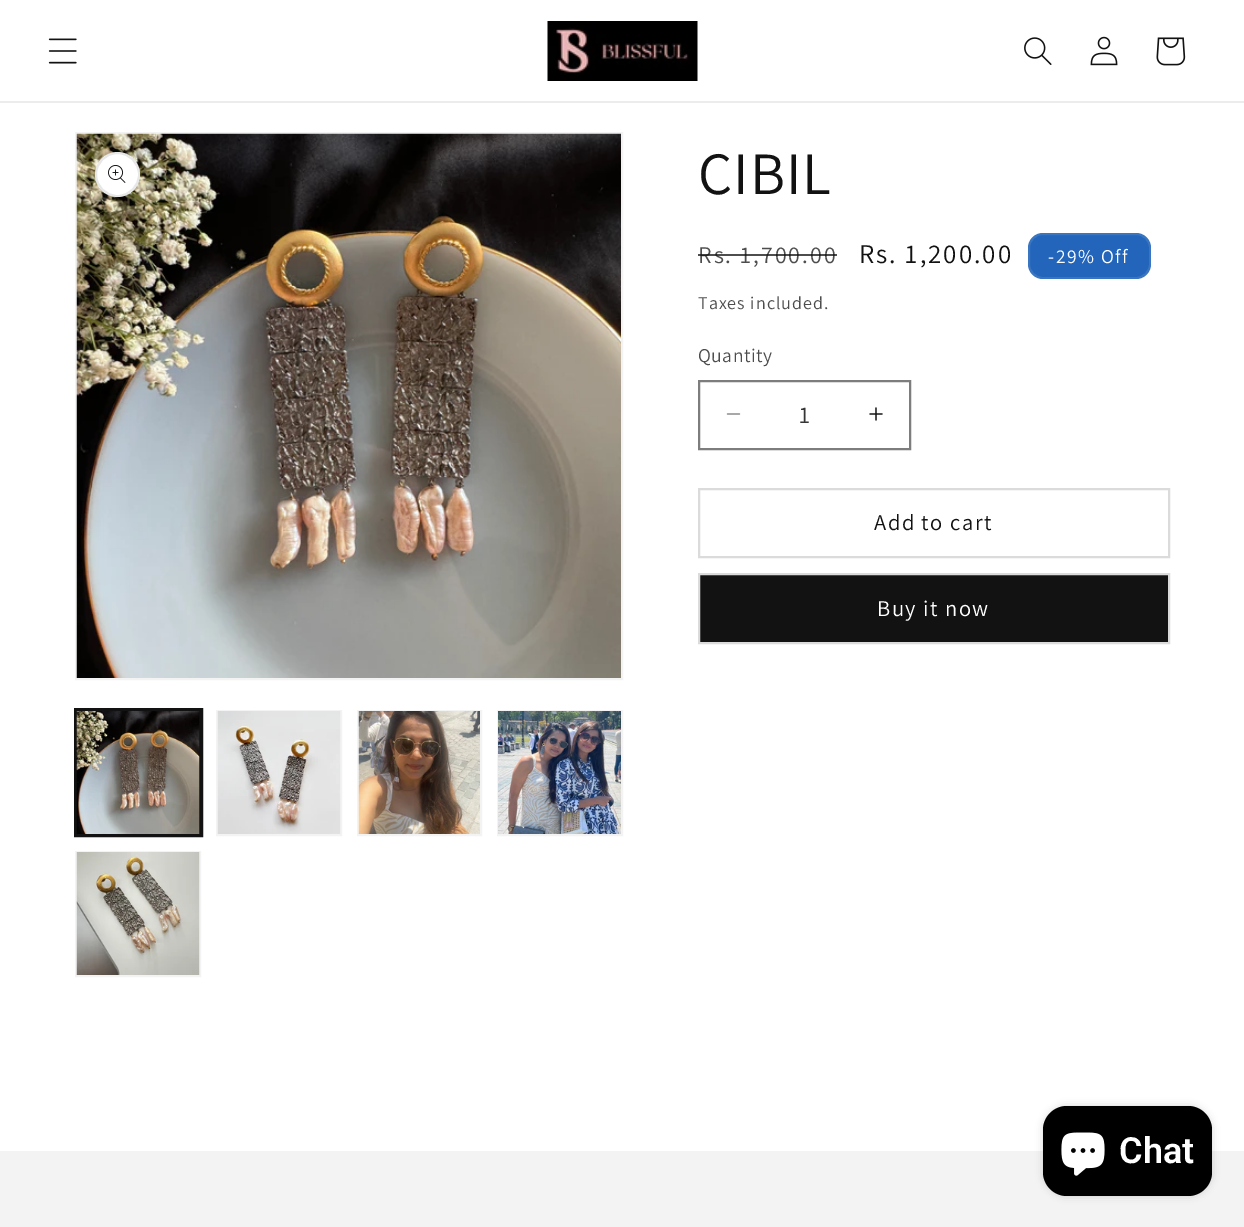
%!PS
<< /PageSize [1244 1227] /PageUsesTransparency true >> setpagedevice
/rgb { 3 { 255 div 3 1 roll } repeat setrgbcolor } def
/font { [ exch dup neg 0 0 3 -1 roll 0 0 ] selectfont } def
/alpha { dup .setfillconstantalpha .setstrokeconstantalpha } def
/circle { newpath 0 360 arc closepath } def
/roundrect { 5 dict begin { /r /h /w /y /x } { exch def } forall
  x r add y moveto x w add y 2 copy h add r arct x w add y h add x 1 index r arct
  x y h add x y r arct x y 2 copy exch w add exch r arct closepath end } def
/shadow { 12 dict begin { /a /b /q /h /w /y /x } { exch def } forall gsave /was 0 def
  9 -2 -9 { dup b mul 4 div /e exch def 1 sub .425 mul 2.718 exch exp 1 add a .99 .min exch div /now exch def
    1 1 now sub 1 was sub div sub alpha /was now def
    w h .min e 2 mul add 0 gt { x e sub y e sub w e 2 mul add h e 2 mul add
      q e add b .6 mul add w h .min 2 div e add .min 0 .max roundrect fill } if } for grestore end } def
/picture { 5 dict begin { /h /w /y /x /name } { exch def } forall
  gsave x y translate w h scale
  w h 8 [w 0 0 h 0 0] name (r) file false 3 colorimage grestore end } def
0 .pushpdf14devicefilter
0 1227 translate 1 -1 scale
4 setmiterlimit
255 255 255 rgb
0 0 1244 1227 rectfill
236 236 236 rgb
0 101 1244 2 rectfill
(img/1.rgb) 48 38 29 26 picture
(img/2.rgb) 547 21 151 60 picture
(img/3.rgb) 1024 37 28 28 picture
(img/4.rgb) 1090 36 28 30 picture
(img/5.rgb) 1156 37 30 29 picture
243 243 243 rgb
2 setlinewidth
76 133 546 546 rectstroke
(img/6.rgb) 76 133 545 545 picture
255 255 255 rgb
117.5 174.5 22.5 circle fill
0.1 alpha
18 18 18 rgb
117.5 174.5 21.5 circle stroke
1 alpha
(img/7.rgb) 108 165 18 18 picture
75 709 127 127 rectstroke
76 711 124 124 rectstroke
(img/8.rgb) 76 711 124 123 picture
243 243 243 rgb
217 711 124 124 rectstroke
(img/9.rgb) 217 711 124 123 picture
358 711 123 124 rectstroke
(img/10.rgb) 358 711 122 123 picture
498 711 124 124 rectstroke
(img/11.rgb) 498 711 123 123 picture
76 852 124 124 rectstroke
(img/12.rgb) 76 852 124 123 picture
34 101 186 rgb
1028 233 123 46 15 roundrect fill
0.1 alpha
255 255 255 rgb
1029 234 121 44 14 roundrect stroke
1 alpha
(img/13.rgb) 726 413 15 2 picture
(img/14.rgb) 869 407 14 14 picture
125 125 125 rgb
699 381 211 68 rectstroke
219 219 219 rgb
699 489 470 68 rectstroke
18 18 18 rgb
700 575 468 67 rectfill
219 219 219 rgb
699 574 470 69 rectstroke
243 243 243 rgb
0 1151 1244 76 rectfill
0 0 0 rgb
1043 1106 169 90 24 4 0.15 shadow
1043 1106 169 90 24 roundrect fill
(img/15.rgb) 1061 1132 44 44 picture
/Assistant-Regular 60 font
18 18 18 rgb
698 194 moveto 1 0 (CIBIL) ashow
/Assistant-Regular 24 font
77 77 77 rgb
698 263 moveto 2 0 (Rs. 1,700.00) ashow
0.75 alpha
18 18 18 rgb
698 254 139 2 rectfill
/Assistant-Regular 27 font
1 alpha
859 263 moveto 2 0 (Rs. 1,200.00) ashow
/Assistant-Regular 19.5 font
255 255 255 rgb
1048 263 moveto 1.5 0 (-29% Off) ashow
/Assistant-Regular 18 font
77 77 77 rgb
698 309 moveto 1 0 (Taxes included.) ashow
/Assistant-Regular 19.5 font
698 362 moveto 0.5 0 (Quantity) ashow
/Assistant-Regular 24 font
54 54 54 rgb
799 423 moveto (1) show
/Assistant-Regular 22.5 font
18 18 18 rgb
874 530 moveto 1.5 0 (Add to cart) ashow
255 255 255 rgb
877 616 moveto 1.5 0 (Buy it now) ashow
/Roboto-SemiBold 36 font
1119 1163 moveto (Chat) show
.poppdf14devicefilter showpage
